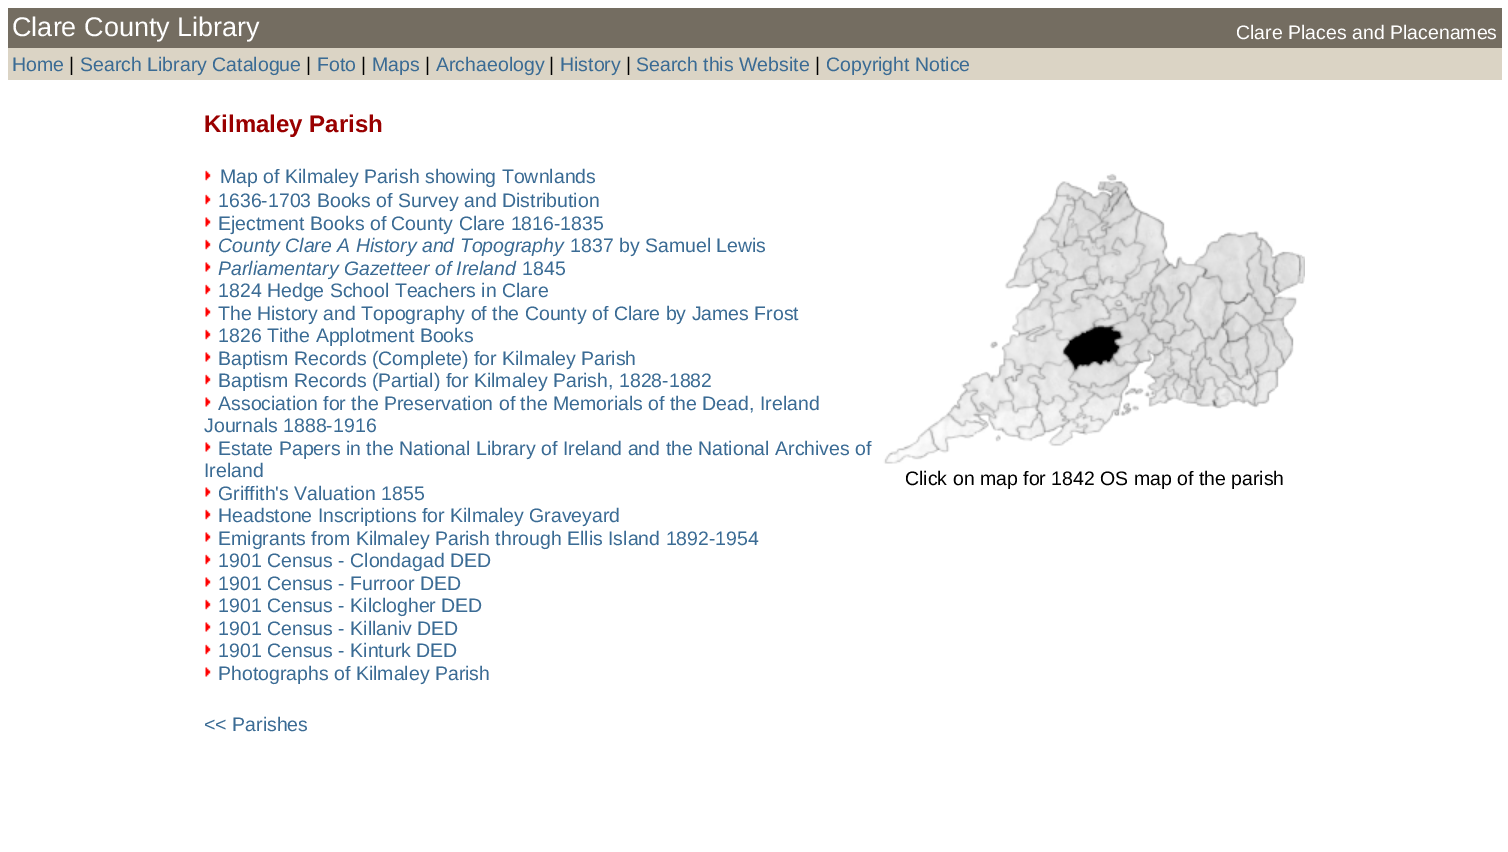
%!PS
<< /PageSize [1508 852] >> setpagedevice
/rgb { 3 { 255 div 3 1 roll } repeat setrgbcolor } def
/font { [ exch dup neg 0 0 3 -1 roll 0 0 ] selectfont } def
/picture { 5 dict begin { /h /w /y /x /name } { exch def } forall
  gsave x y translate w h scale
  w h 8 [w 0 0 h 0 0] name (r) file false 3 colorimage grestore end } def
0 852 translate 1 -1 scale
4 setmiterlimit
255 255 255 rgb
0 0 1508 852 rectfill
116 109 97 rgb
8 8 1494 40 rectfill
219 212 197 rgb
8 48 1494 32 rectfill
(img/1.rgb) 205 170 6 11 picture
(img/1.rgb) 205 194 6 11 picture
(img/2.rgb) 205 217 6 10 picture
(img/1.rgb) 205 239 6 11 picture
(img/2.rgb) 205 262 6 10 picture
(img/1.rgb) 205 284 6 11 picture
(img/2.rgb) 205 307 6 10 picture
(img/1.rgb) 205 329 6 11 picture
(img/2.rgb) 205 352 6 10 picture
(img/1.rgb) 205 374 6 11 picture
(img/2.rgb) 205 397 6 10 picture
(img/2.rgb) 205 442 6 10 picture
(img/2.rgb) 205 487 6 10 picture
(img/1.rgb) 205 509 6 11 picture
(img/2.rgb) 205 532 6 10 picture
(img/1.rgb) 205 554 6 11 picture
(img/2.rgb) 205 577 6 10 picture
(img/1.rgb) 205 599 6 11 picture
(img/2.rgb) 205 622 6 10 picture
(img/1.rgb) 205 644 6 11 picture
(img/2.rgb) 205 667 6 10 picture
(img/3.rgb) 883 173 422 291 picture
/LiberationSans-Regular 27 font
255 255 255 rgb
12 36 moveto (Clare County Library) show
/LiberationSans-Regular 19.5 font
1236 39 moveto (Clare Places and Placenames) show
58 107 148 rgb
12 71 moveto (Home) show
0 0 0 rgb
69 71 moveto (|) show
58 107 148 rgb
80 71 moveto (Search Library Catalogue) show
0 0 0 rgb
306 71 moveto (|) show
58 107 148 rgb
317 71 moveto (Foto) show
0 0 0 rgb
361 71 moveto (|) show
58 107 148 rgb
372 71 moveto (Maps) show
0 0 0 rgb
425 71 moveto (|) show
58 107 148 rgb
436 71 moveto (Archaeology) show
0 0 0 rgb
549 71 moveto (|) show
58 107 148 rgb
560 71 moveto (History) show
0 0 0 rgb
626 71 moveto (|) show
58 107 148 rgb
636 71 moveto (Search this Website) show
0 0 0 rgb
815 71 moveto (|) show
58 107 148 rgb
826 71 moveto (Copyright Notice) show
/LiberationSans-Bold 24 font
153 0 0 rgb
204 132 moveto (Kilmaley Parish) show
/LiberationSans-Regular 19.5 font
58 107 148 rgb
[
  [(Map of Kilmaley Parish showing Townlands) 220 183]
  [(1636-1703 Books of Survey and Distribution) 218 207]
  [(Ejectment Books of County Clare 1816-1835) 218 230]
] { aload pop moveto show } forall
/LiberationSans-Italic 19.5 font
218 252 moveto (County Clare A History and Topography) show
/LiberationSans-Regular 19.5 font
570 252 moveto (1837 by Samuel Lewis) show
/LiberationSans-Italic 19.5 font
218 275 moveto (Parliamentary Gazetteer of Ireland) show
/LiberationSans-Regular 19.5 font
[
  [(1845) 522 275]
  [(1824 Hedge School Teachers in Clare) 218 297]
  [(The History and Topography of the County of Clare by James Frost) 218 320]
  [(1826 Tithe Applotment Books) 218 342]
  [(Baptism Records \(Complete\) for Kilmaley Parish) 218 365]
  [(Baptism Records \(Partial\) for Kilmaley Parish, 1828-1882) 218 387]
  [(Association for the Preservation of the Memorials of the Dead, Ireland) 218 410]
  [(Journals 1888-1916) 204 432]
  [(Estate Papers in the National Library of Ireland and the National Archives of) 218 455]
  [(Ireland) 204 477]
  [(Griffith's Valuation 1855) 218 500]
  [(Headstone Inscriptions for Kilmaley Graveyard) 218 522]
  [(Emigrants from Kilmaley Parish through Ellis Island 1892-1954) 218 545]
  [(1901 Census - Clondagad DED) 218 567]
  [(1901 Census - Furroor DED) 218 590]
  [(1901 Census - Kilclogher DED) 218 612]
  [(1901 Census - Killaniv DED) 218 635]
  [(1901 Census - Kinturk DED) 218 657]
  [(Photographs of Kilmaley Parish) 218 680]
] { aload pop moveto show } forall
0 0 0 rgb
905 485 moveto (Click on map for 1842 OS map of the parish) show
58 107 148 rgb
204 731 moveto (<< Parishes) show
showpage
